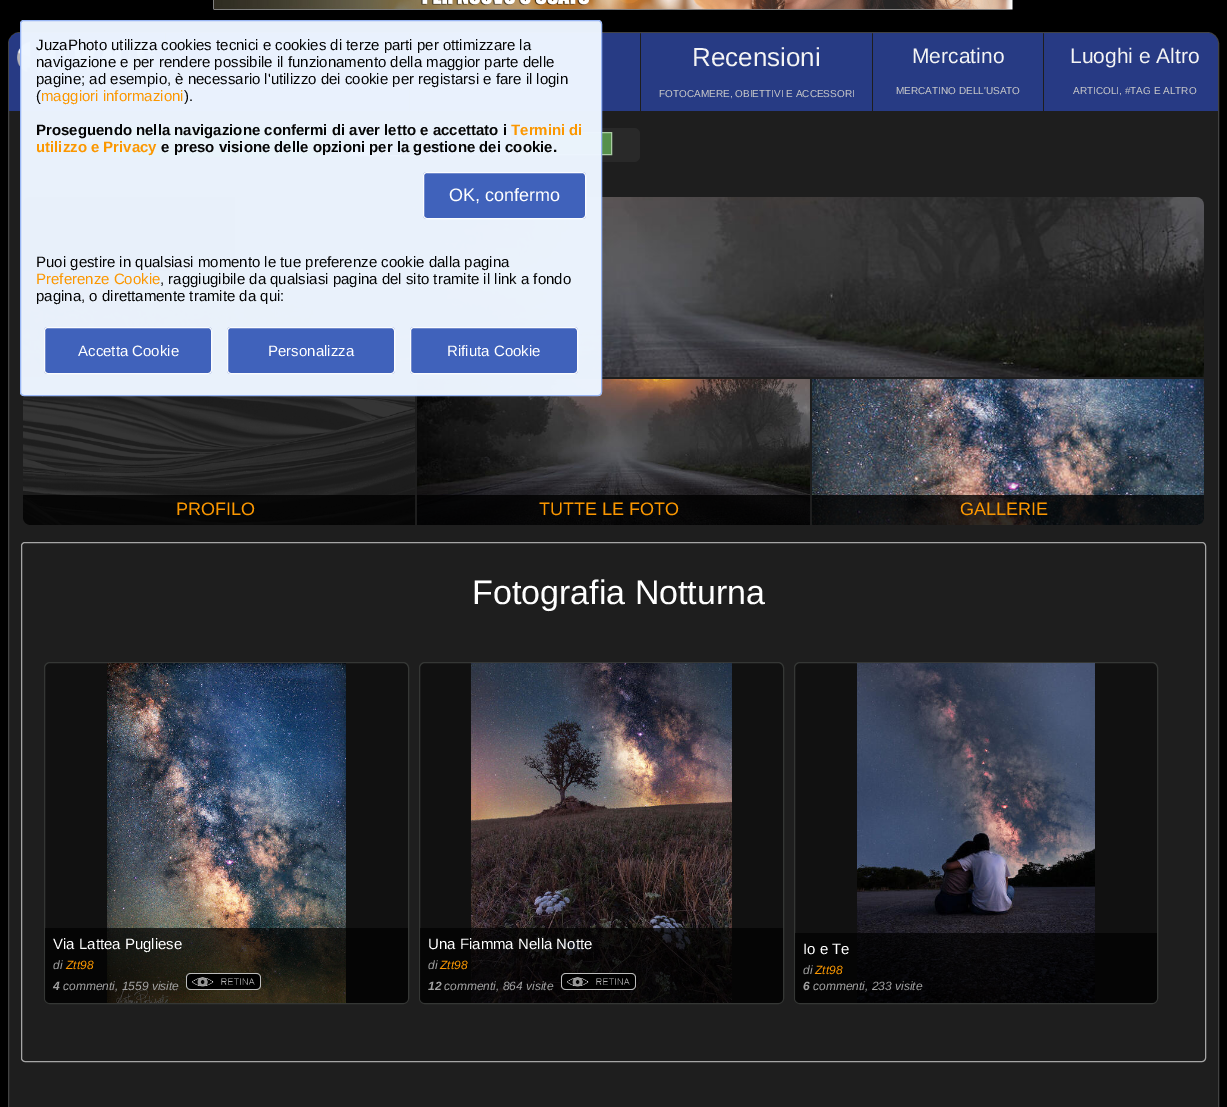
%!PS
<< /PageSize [1227 1107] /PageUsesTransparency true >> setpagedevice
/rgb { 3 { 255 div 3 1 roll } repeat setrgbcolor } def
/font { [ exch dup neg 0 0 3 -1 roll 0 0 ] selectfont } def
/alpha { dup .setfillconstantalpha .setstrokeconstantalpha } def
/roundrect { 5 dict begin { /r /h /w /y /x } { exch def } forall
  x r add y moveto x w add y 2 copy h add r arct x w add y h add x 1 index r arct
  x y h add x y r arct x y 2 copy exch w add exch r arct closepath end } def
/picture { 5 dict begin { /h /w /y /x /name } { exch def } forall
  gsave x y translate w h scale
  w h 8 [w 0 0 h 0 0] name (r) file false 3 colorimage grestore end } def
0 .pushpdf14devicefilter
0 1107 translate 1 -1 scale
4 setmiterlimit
0 0 0 rgb
0 0 1227 1107 rectfill
(img/1.rgb) 213 0 800 10 picture
30 30 30 rgb
8.5 32.5 1210 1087 11.5 roundrect gsave fill grestore
66 66 66 rgb
stroke
gsave
9 33 1209 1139 11 roundrect clip newpath
0.95 alpha
39 60 137 rgb
10 32 moveto 165 32 lineto 165 111 lineto 7 111 lineto 7 35 lineto 7 33.5 8.5 32 10 32 curveto closepath fill
grestore
(img/2.rgb) 17 41 139 33 picture
39 59 132 rgb
166 33 243 78 rectfill
410 33 230 78 rectfill
41 41 41 rgb
29 127 moveto 111 127 lineto 111 157 lineto 29 157 lineto 25.5 157 23 154.5 23 151 curveto 23 133 lineto 23 129.5 25.5 127 29 127 curveto closepath fill
(img/3.rgb) 83 134 12 11 picture
0 128 0 rgb
112 127 moveto 316 127 lineto 319.5 127 322 129.5 322 133 curveto 322 151 lineto 322 154.5 319.5 157 316 157 curveto 112 157 lineto closepath fill
41 41 41 rgb
335 128 305 34 6 roundrect fill
234 234 234 rgb
349.5 132.5 moveto 379.5 132.5 lineto 379.5 155.5 lineto 349.5 155.5 lineto closepath gsave fill grestore
187 187 187 rgb
stroke
4 4 4 rgb
387.5 132.5 moveto 417.5 132.5 lineto 417.5 155.5 lineto 387.5 155.5 lineto closepath gsave fill grestore
187 187 187 rgb
stroke
[
  [425 132 86 1 129 150 211]
  [425 154 21 1 129 150 211]
  [425 132 1 23 129 150 211]
  [426 133 84 21 54 80 157]
  [510 132 1 23 129 150 211]
] { aload pop rgb rectfill } forall
86 144 75 rgb
518.5 132.5 moveto 611.5 132.5 lineto 611.5 154.5 lineto 518.5 154.5 lineto closepath gsave fill grestore
170 204 163 rgb
stroke
129 150 211 rgb
446 154 65 1 rectfill
(img/4.rgb) 23 197 1181 180 picture
0.8 alpha
0 0 0 rgb
30 197 moveto 235 197 lineto 235 256 lineto 235 264.5 228.5 271 220 271 curveto 23 271 lineto 23 204 lineto 23 200 26 197 30 197 curveto closepath fill
1 alpha
(img/5.rgb) 23 379 392 146 picture
(img/6.rgb) 417 379 393 146 picture
0.98 alpha
237 245 255 rgb
20 20 582 376 4 roundrect fill
151 181 244 rgb
20.5 20.5 581 375 3.5 roundrect stroke
1 alpha
64 98 187 rgb
423 172 163 47 4 roundrect fill
0.98 alpha
255 255 255 rgb
423.5 172.5 162 46 3.5 roundrect stroke
1 alpha
64 98 187 rgb
44 327 168 47 4 roundrect fill
0.98 alpha
255 255 255 rgb
44.5 327.5 167 46 3.5 roundrect stroke
1 alpha
64 98 187 rgb
227 327 168 47 4 roundrect fill
0.98 alpha
255 255 255 rgb
227.5 327.5 167 46 3.5 roundrect stroke
1 alpha
64 98 187 rgb
410 327 168 47 4 roundrect fill
0.98 alpha
255 255 255 rgb
410.5 327.5 167 46 3.5 roundrect stroke
1 alpha
39 59 132 rgb
641 33 231 78 rectfill
873 33 170 78 rectfill
0.95 alpha
39 60 137 rgb
1044 33 moveto 1207 33 lineto 1213 33 1218 38 1218 44 curveto 1218 111 lineto 1044 111 lineto closepath fill
0.8 alpha
0 0 0 rgb
23 495 moveto 415 495 lineto 415 525 lineto 31 525 lineto 26.5 525 23 521.5 23 517 curveto closepath fill
417 495 393 30 rectfill
1 alpha
(img/7.rgb) 812 379 392 146 picture
0.8 alpha
812 495 moveto 1204 495 lineto 1204 517 lineto 1204 521.5 1200.5 525 1196 525 curveto 812 525 lineto closepath fill
1 alpha
166 166 166 rgb
21.5 542.5 1184 519 3.5 roundrect stroke
17 17 17 rgb
44.5 662.5 364 341 5.5 roundrect gsave fill grestore
53 55 53 rgb
stroke
(img/8.rgb) 107 663 239 340 picture
0.7 alpha
0 0 0 rgb
45 928 moveto 408 928 lineto 408 998 lineto 408 1001 406 1003 403 1003 curveto 50 1003 lineto 47 1003 45 1001 45 998 curveto closepath fill
1 alpha
189 189 189 rgb
191 973 moveto 256 973 lineto 259 973 261 975 261 978 curveto 261 985 lineto 261 988 259 990 256 990 curveto 191 990 lineto 188 990 186 988 186 985 curveto 186 978 lineto 186 975 188 973 191 973 curveto closepath fill
(img/9.rgb) 187 974 73 15 picture
17 17 17 rgb
419.5 662.5 364 341 5.5 roundrect gsave fill grestore
53 55 53 rgb
stroke
(img/10.rgb) 471 663 261 340 picture
0.7 alpha
0 0 0 rgb
420 928 moveto 783 928 lineto 783 998 lineto 783 1001 781 1003 778 1003 curveto 425 1003 lineto 422 1003 420 1001 420 998 curveto closepath fill
1 alpha
189 189 189 rgb
566 973 moveto 631 973 lineto 634 973 636 975 636 978 curveto 636 985 lineto 636 988 634 990 631 990 curveto 566 990 lineto 563 990 561 988 561 985 curveto 561 978 lineto 561 975 563 973 566 973 curveto closepath fill
(img/11.rgb) 562 974 73 15 picture
17 17 17 rgb
794.5 662.5 363 341 5.5 roundrect gsave fill grestore
53 55 53 rgb
stroke
(img/12.rgb) 857 663 238 340 picture
0.7 alpha
0 0 0 rgb
795 933 moveto 1157 933 lineto 1157 998 lineto 1157 1001 1155 1003 1152 1003 curveto 800 1003 lineto 797 1003 795 1001 795 998 curveto closepath fill
/LiberationSans-Regular 15 font
1 alpha
5 5 5 rgb
[
  [(JuzaPhoto utilizza cookies tecnici e cookies di terze parti per ottimizzare la) 36 50]
  [(navigazione e per rendere possibile il funzionamento della maggior parte delle) 36 67]
  [(pagine; ad esempio, è necessario l'utilizzo dei cookie per registarsi e fare il login) 36 84]
  [(\() 36 101]
] { aload pop moveto show } forall
251 151 0 rgb
41 101 moveto (maggiori informazioni) show
5 5 5 rgb
184 101 moveto (\).) show
/LiberationSans-Bold 15 font
36 135 moveto (Proseguendo nella navigazione confermi di aver letto e accettato i) show
251 151 0 rgb
511 135 moveto (Termini di) show
36 152 moveto (utilizzo e Privacy) show
5 5 5 rgb
161 152 moveto (e preso visione delle opzioni per la gestione dei cookie.) show
/LiberationSans-Regular 18 font
255 255 255 rgb
449 201 moveto (OK, confermo) show
/LiberationSans-Regular 15 font
5 5 5 rgb
36 267 moveto (Puoi gestire in qualsiasi momento le tue preferenze cookie dalla pagina) show
251 151 0 rgb
36 284 moveto (Preferenze Cookie) show
5 5 5 rgb
160 284 moveto (, raggiugibile da qualsiasi pagina del sito tramite il link a fondo) show
36 301 moveto (pagina, o direttamente tramite da qui:) show
255 255 255 rgb
[
  [(Accetta Cookie) 78 356]
  [(Personalizza) 268 356]
  [(Rifiuta Cookie) 447 356]
] { aload pop moveto show } forall
/LiberationSans-Regular 26 font
244 244 244 rgb
692 66 moveto (Recensioni) show
/LiberationSans-Regular 10 font
201 201 201 rgb
659 97 moveto (FOTOCAMERE, OBIETTIVI E ACCESSORI) show
/LiberationSans-Regular 21 font
244 244 244 rgb
912 63 moveto (Mercatino) show
/LiberationSans-Regular 10 font
201 201 201 rgb
896 94 moveto (MERCATINO DELL'USATO) show
/LiberationSans-Regular 21 font
244 244 244 rgb
1070 63 moveto (Luoghi e Altro) show
/LiberationSans-Regular 10 font
201 201 201 rgb
1073 94 moveto (ARTICOLI, #TAG E ALTRO) show
/LiberationSans-Regular 18 font
251 151 0 rgb
[
  [(PROFILO) 176 515]
  [(TUTTE LE FOTO) 539 515]
  [(GALLERIE) 960 515]
] { aload pop moveto show } forall
/LiberationSans-Regular 34 font
255 255 255 rgb
472 604 moveto (Fotografia Notturna) show
/LiberationSans-Regular 15 font
53 949 moveto (Via Lattea Pugliese) show
/LiberationSans-Italic 12 font
162 162 162 rgb
53 969 moveto (di) show
251 151 0 rgb
66 969 moveto (Ztt98) show
/LiberationSans-BoldItalic 12 font
162 162 162 rgb
53 990 moveto (4) show
/LiberationSans-Italic 12 font
63 990 moveto (commenti, 1559 visite) show
/LiberationSans-Regular 15 font
255 255 255 rgb
428 949 moveto (Una Fiamma Nella Notte) show
/LiberationSans-Italic 12 font
162 162 162 rgb
428 969 moveto (di) show
251 151 0 rgb
440 969 moveto (Ztt98) show
/LiberationSans-BoldItalic 12 font
162 162 162 rgb
428 990 moveto (12) show
/LiberationSans-Italic 12 font
444 990 moveto (commenti, 864 visite) show
/LiberationSans-Regular 15 font
255 255 255 rgb
803 954 moveto (Io e Te) show
/LiberationSans-Italic 12 font
162 162 162 rgb
803 974 moveto (di) show
251 151 0 rgb
815 974 moveto (Ztt98) show
/LiberationSans-BoldItalic 12 font
162 162 162 rgb
803 990 moveto (6) show
/LiberationSans-Italic 12 font
813 990 moveto (commenti, 233 visite) show
.poppdf14devicefilter showpage
